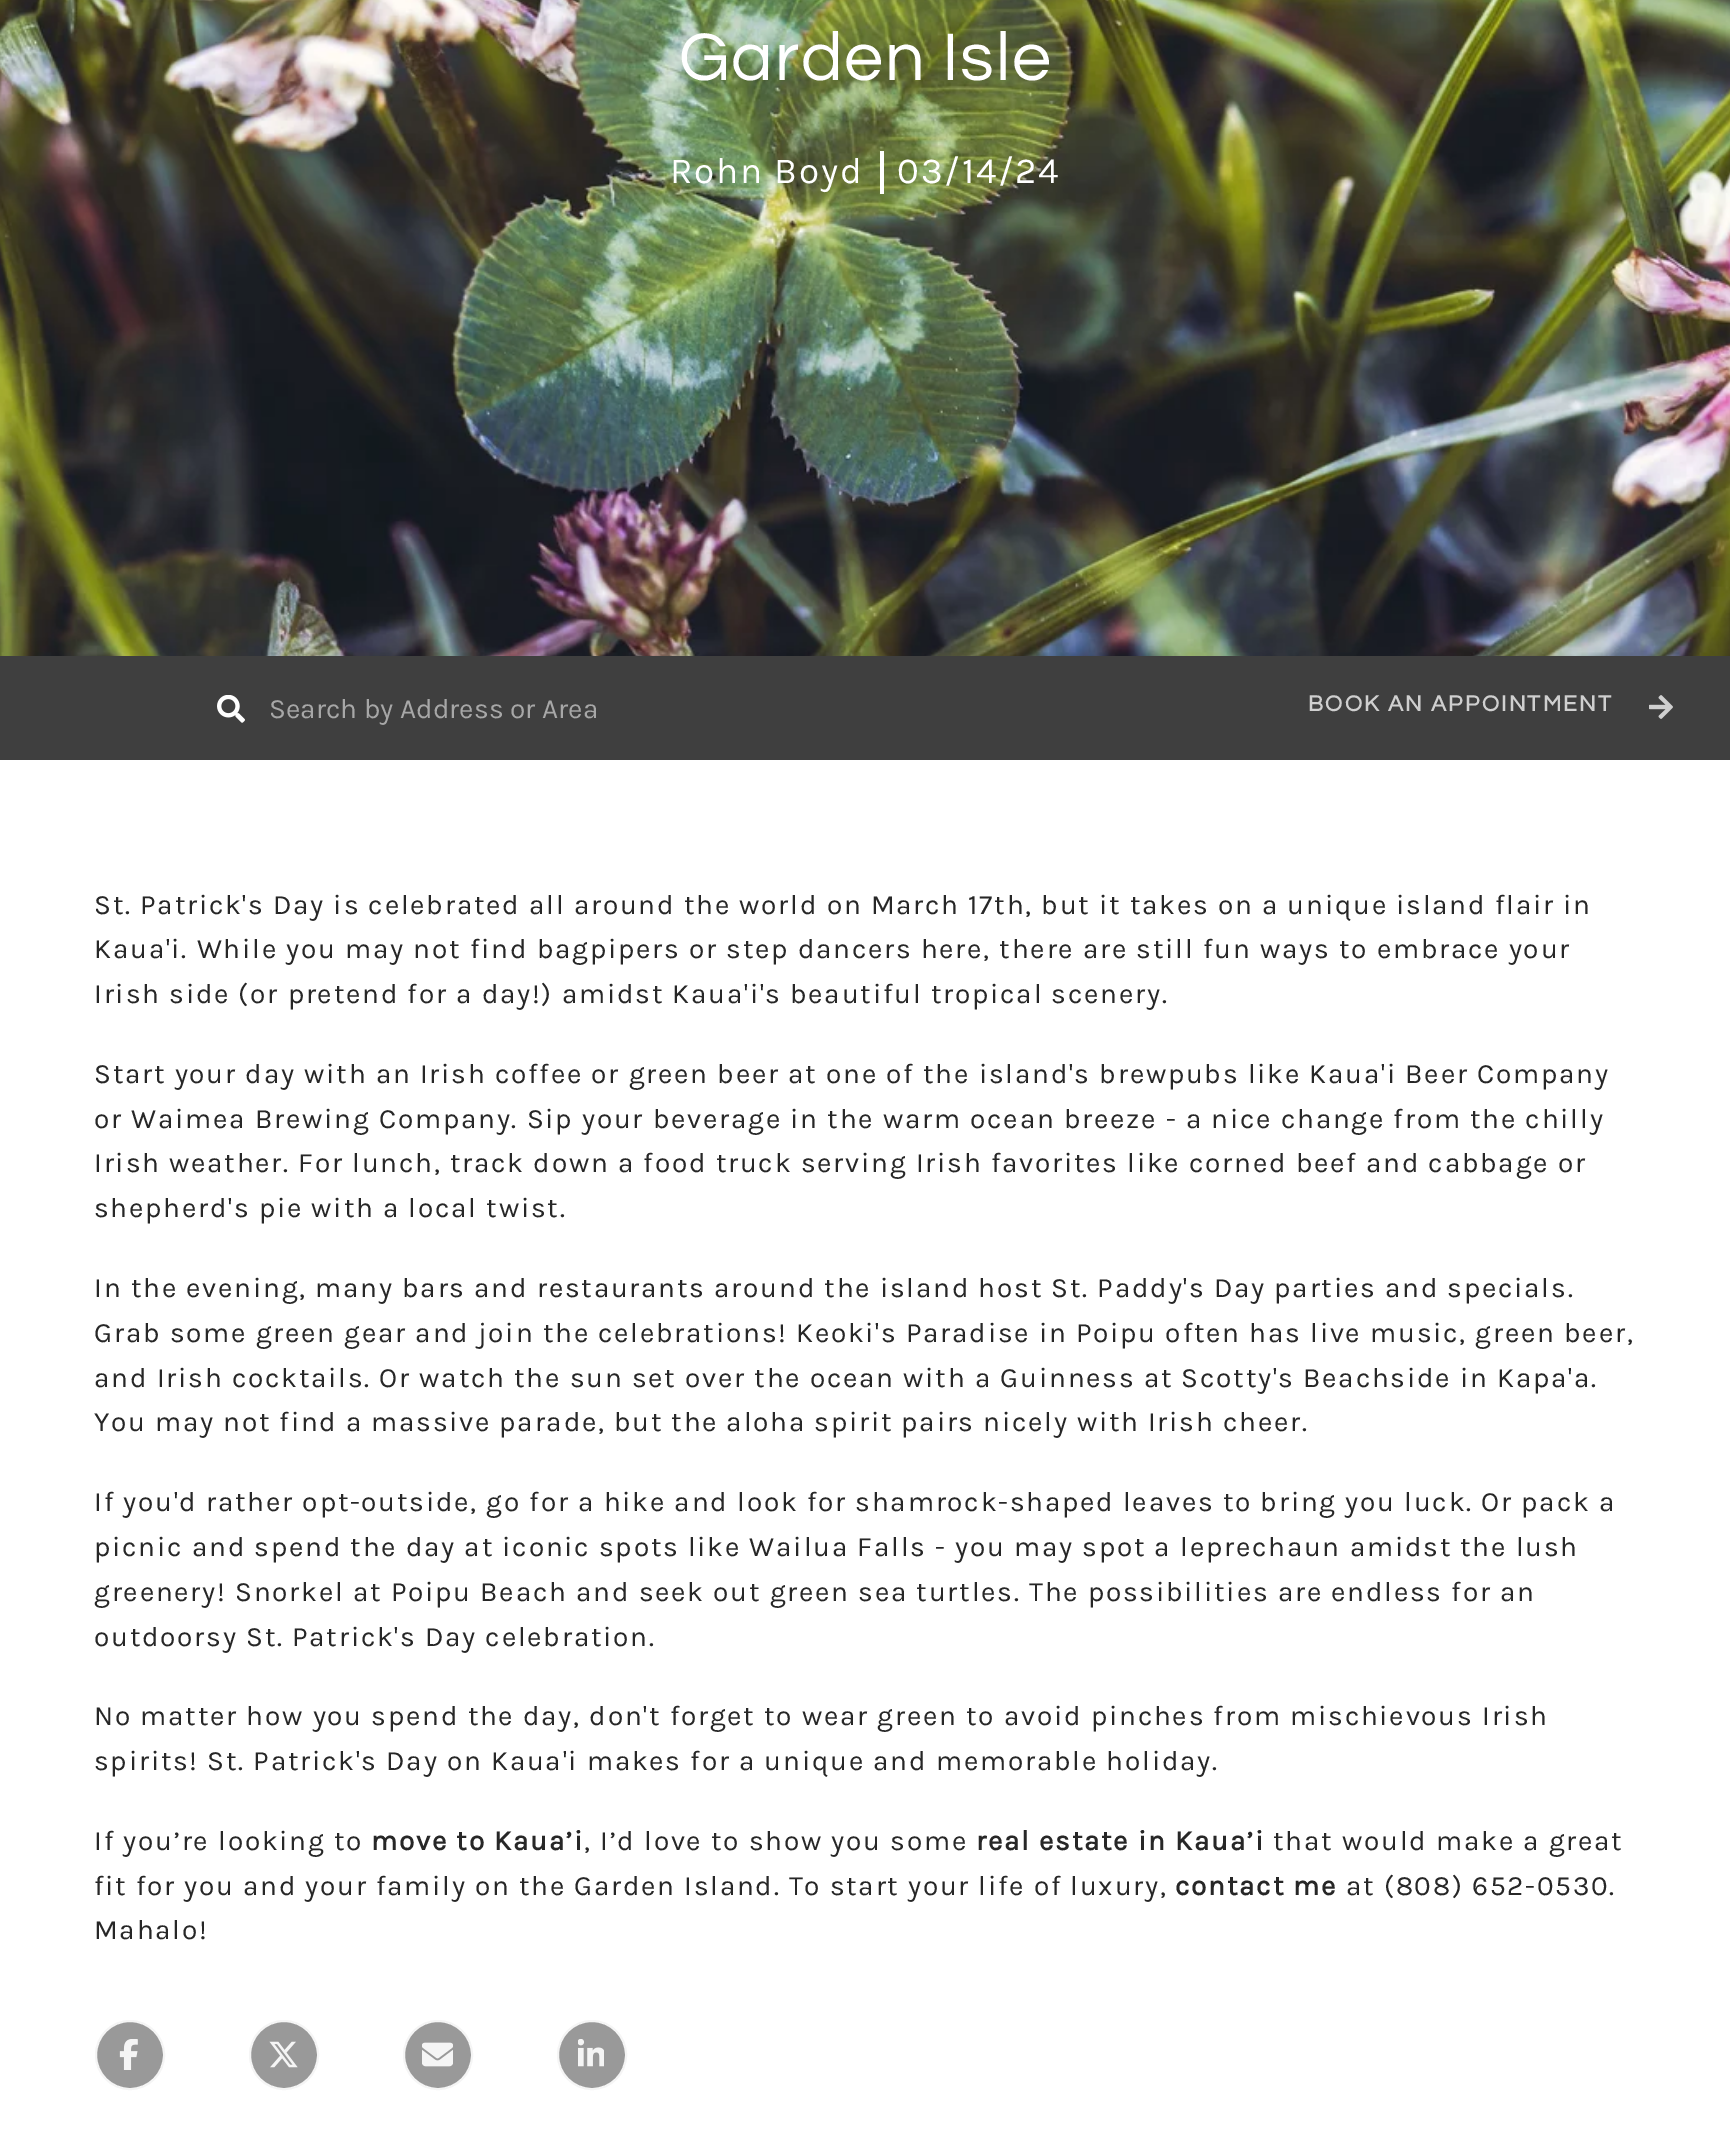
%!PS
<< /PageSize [1730 2150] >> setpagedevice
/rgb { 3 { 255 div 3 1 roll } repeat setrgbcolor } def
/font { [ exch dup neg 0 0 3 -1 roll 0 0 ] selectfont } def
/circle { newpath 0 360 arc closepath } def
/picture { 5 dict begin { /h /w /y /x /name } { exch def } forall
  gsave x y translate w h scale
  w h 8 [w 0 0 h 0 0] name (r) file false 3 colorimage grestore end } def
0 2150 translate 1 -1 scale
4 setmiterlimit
255 255 255 rgb
0 0 1730 2150 rectfill
(img/1.rgb) 0 0 1730 656 picture
880 151 4 43 rectfill
63 63 63 rgb
0 656 1730 104 rectfill
(img/2.rgb) 217 695 28 28 picture
(img/3.rgb) 1649 695 24 24 picture
153 153 153 rgb
130 2055 34 circle gsave fill grestore
245 245 245 rgb
2 setlinewidth
stroke
(img/4.rgb) 119 2039 19 31 picture
153 153 153 rgb
284 2055 34 circle gsave fill grestore
245 245 245 rgb
stroke
(img/5.rgb) 269 2041 29 27 picture
153 153 153 rgb
438 2055 34 circle gsave fill grestore
245 245 245 rgb
stroke
(img/6.rgb) 422 2042 31 25 picture
153 153 153 rgb
592 2055 34 circle gsave fill grestore
245 245 245 rgb
stroke
(img/7.rgb) 578 2039 26 28 picture
/Questrial-Regular 70 font
255 255 255 rgb
679 80 moveto -1 0 32 1.75 0 (Garden Isle) awidthshow
/Karla-Regular 36.75 font
670 183 moveto 1.75 0 (Rohn Boyd) ashow
897 183 moveto 1.75 0 (03/14/24) ashow
/Karla-Regular 28 font
167 167 167 rgb
269 718 moveto (Search by Address or Area) show
/Questrial-Bold 22.75 font
207 207 207 rgb
1308 711 moveto 2.25 0 (BOOK AN APPOINTMENT) ashow
/Karla-Regular 28 font
39 39 39 rgb
94 914 moveto 1.75 0 (St. Patrick's Day is celebrated all around the world on March 17th, but it takes on a unique island flair in) ashow
94 958 moveto 1.75 0 (Kaua'i. While you may not find bagpipers or step dancers here, there are still fun ways to embrace your) ashow
94 1003 moveto 1.75 0 (Irish side \(or pretend for a day!\) amidst Kaua'i's beautiful tropical scenery.) ashow
94 1083 moveto 1.75 0 (Start your day with an Irish coffee or green beer at one of the island's brewpubs like Kaua'i Beer Company) ashow
94 1128 moveto 1.75 0 (or Waimea Brewing Company. Sip your beverage in the warm ocean breeze - a nice change from the chilly) ashow
94 1172 moveto 1.75 0 (Irish weather. For lunch, track down a food truck serving Irish favorites like corned beef and cabbage or) ashow
94 1217 moveto 1.75 0 (shepherd's pie with a local twist.) ashow
94 1297 moveto 1.75 0 (In the evening, many bars and restaurants around the island host St. Paddy's Day parties and specials.) ashow
94 1342 moveto 1.75 0 (Grab some green gear and join the celebrations! Keoki's Paradise in Poipu often has live music, green beer,) ashow
94 1387 moveto 1.75 0 (and Irish cocktails. Or watch the sun set over the ocean with a Guinness at Scotty's Beachside in Kapa'a.) ashow
94 1431 moveto -0.25 0 32 1.75 0 (You may not find a massive parade, but the aloha spirit pairs nicely with Irish cheer.) awidthshow
94 1511 moveto 1.75 0 (If you'd rather opt-outside, go for a hike and look for shamrock-shaped leaves to bring you luck. Or pack a) ashow
94 1556 moveto 1.75 0 (picnic and spend the day at iconic spots like Wailua Falls - you may spot a leprechaun amidst the lush) ashow
94 1601 moveto 1.75 0 (greenery! Snorkel at Poipu Beach and seek out green sea turtles. The possibilities are endless for an) ashow
94 1646 moveto 1.75 0 (outdoorsy St. Patrick's Day celebration.) ashow
94 1725 moveto 1.75 0 (No matter how you spend the day, don't forget to wear green to avoid pinches from mischievous Irish) ashow
94 1770 moveto 1.75 0 (spirits! St. Patrick's Day on Kaua'i makes for a unique and memorable holiday.) ashow
94 1850 moveto 1.75 0 (If you’re looking to) ashow
/Karla-Bold 28 font
371 1850 moveto 1.75 0 (move to Kaua’i) ashow
/Karla-Regular 28 font
584 1850 moveto 1.75 0 (, I’d love to show you some) ashow
/Karla-Bold 28 font
976 1850 moveto 1.75 0 (real estate in Kaua’i) ashow
/Karla-Regular 28 font
1273 1850 moveto 1.75 0 (that would make a great) ashow
94 1895 moveto -0.25 0 32 1.75 0 (fit for you and your family on the Garden Island. To start your life of luxury,) awidthshow
/Karla-Bold 28 font
1175 1895 moveto 1.75 0 (contact me) ashow
/Karla-Regular 28 font
1346 1895 moveto 1.75 0 (at \(808\) 652-0530.) ashow
94 1939 moveto 1.75 0 (Mahalo!) ashow
showpage
